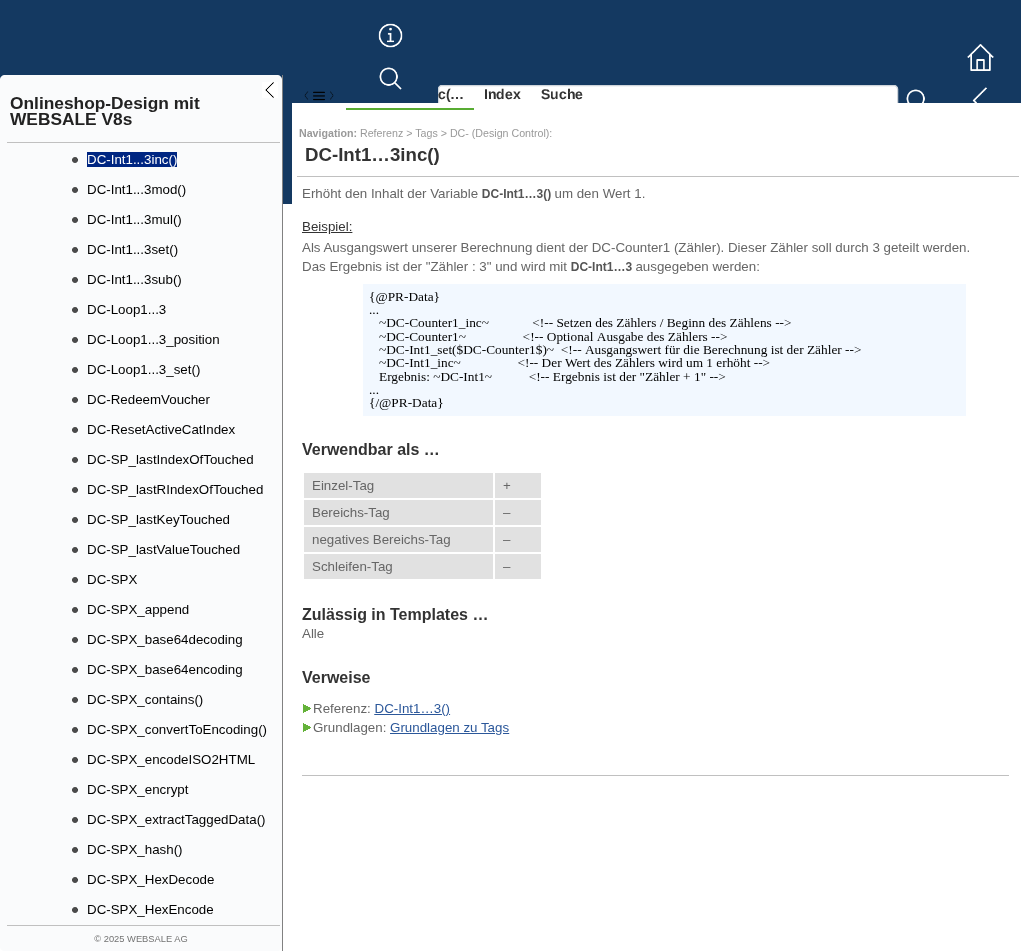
%!PS
<< /PageSize [1021 951] >> setpagedevice
/rgb { 3 { 255 div 3 1 roll } repeat setrgbcolor } def
/font { [ exch dup neg 0 0 3 -1 roll 0 0 ] selectfont } def
/roundrect { 5 dict begin { /r /h /w /y /x } { exch def } forall
  x r add y moveto x w add y 2 copy h add r arct x w add y h add x 1 index r arct
  x y h add x y r arct x y 2 copy exch w add exch r arct closepath end } def
/picture { 5 dict begin { /h /w /y /x /name } { exch def } forall
  gsave x y translate w h scale
  w h 8 [w 0 0 h 0 0] name (r) file false 3 colorimage grestore end } def
0 951 translate 1 -1 scale
4 setmiterlimit
255 255 255 rgb
0 0 1021 951 rectfill
20 57 97 rgb
0 0 1021 204 rectfill
(img/1.rgb) 378 23 25 25 picture
(img/2.rgb) 379 67 23 23 picture
255 255 255 rgb
438.5 85.5 459 33 3.5 roundrect gsave fill grestore
206 212 218 rgb
stroke
(img/3.rgb) 906 89 19 14 picture
(img/4.rgb) 967 44 27 27 picture
(img/5.rgb) 972 87 15 16 picture
129 129 129 rgb
282 75 1 876 rectfill
250 251 252 rgb
0 75 282 876 5 roundrect fill
(img/6.rgb) 7 97 273 845 picture
(img/7.rgb) 262 82 16 16 picture
(img/8.rgb) 304 91 5 9 picture
(img/9.rgb) 313 91 12 10 picture
(img/10.rgb) 330 91 4 9 picture
255 255 255 rgb
292 103 729 101 rectfill
88 172 50 rgb
346 108 128 2 rectfill
(img/11.rgb) 297 129 722 647 picture
/LiberationSans-Bold 14 font
51 51 51 rgb
[
  [(c\(…) 438 99]
  [(Index) 484 99]
  [(Suche) 541 99]
] { aload pop moveto show } forall
showpage
